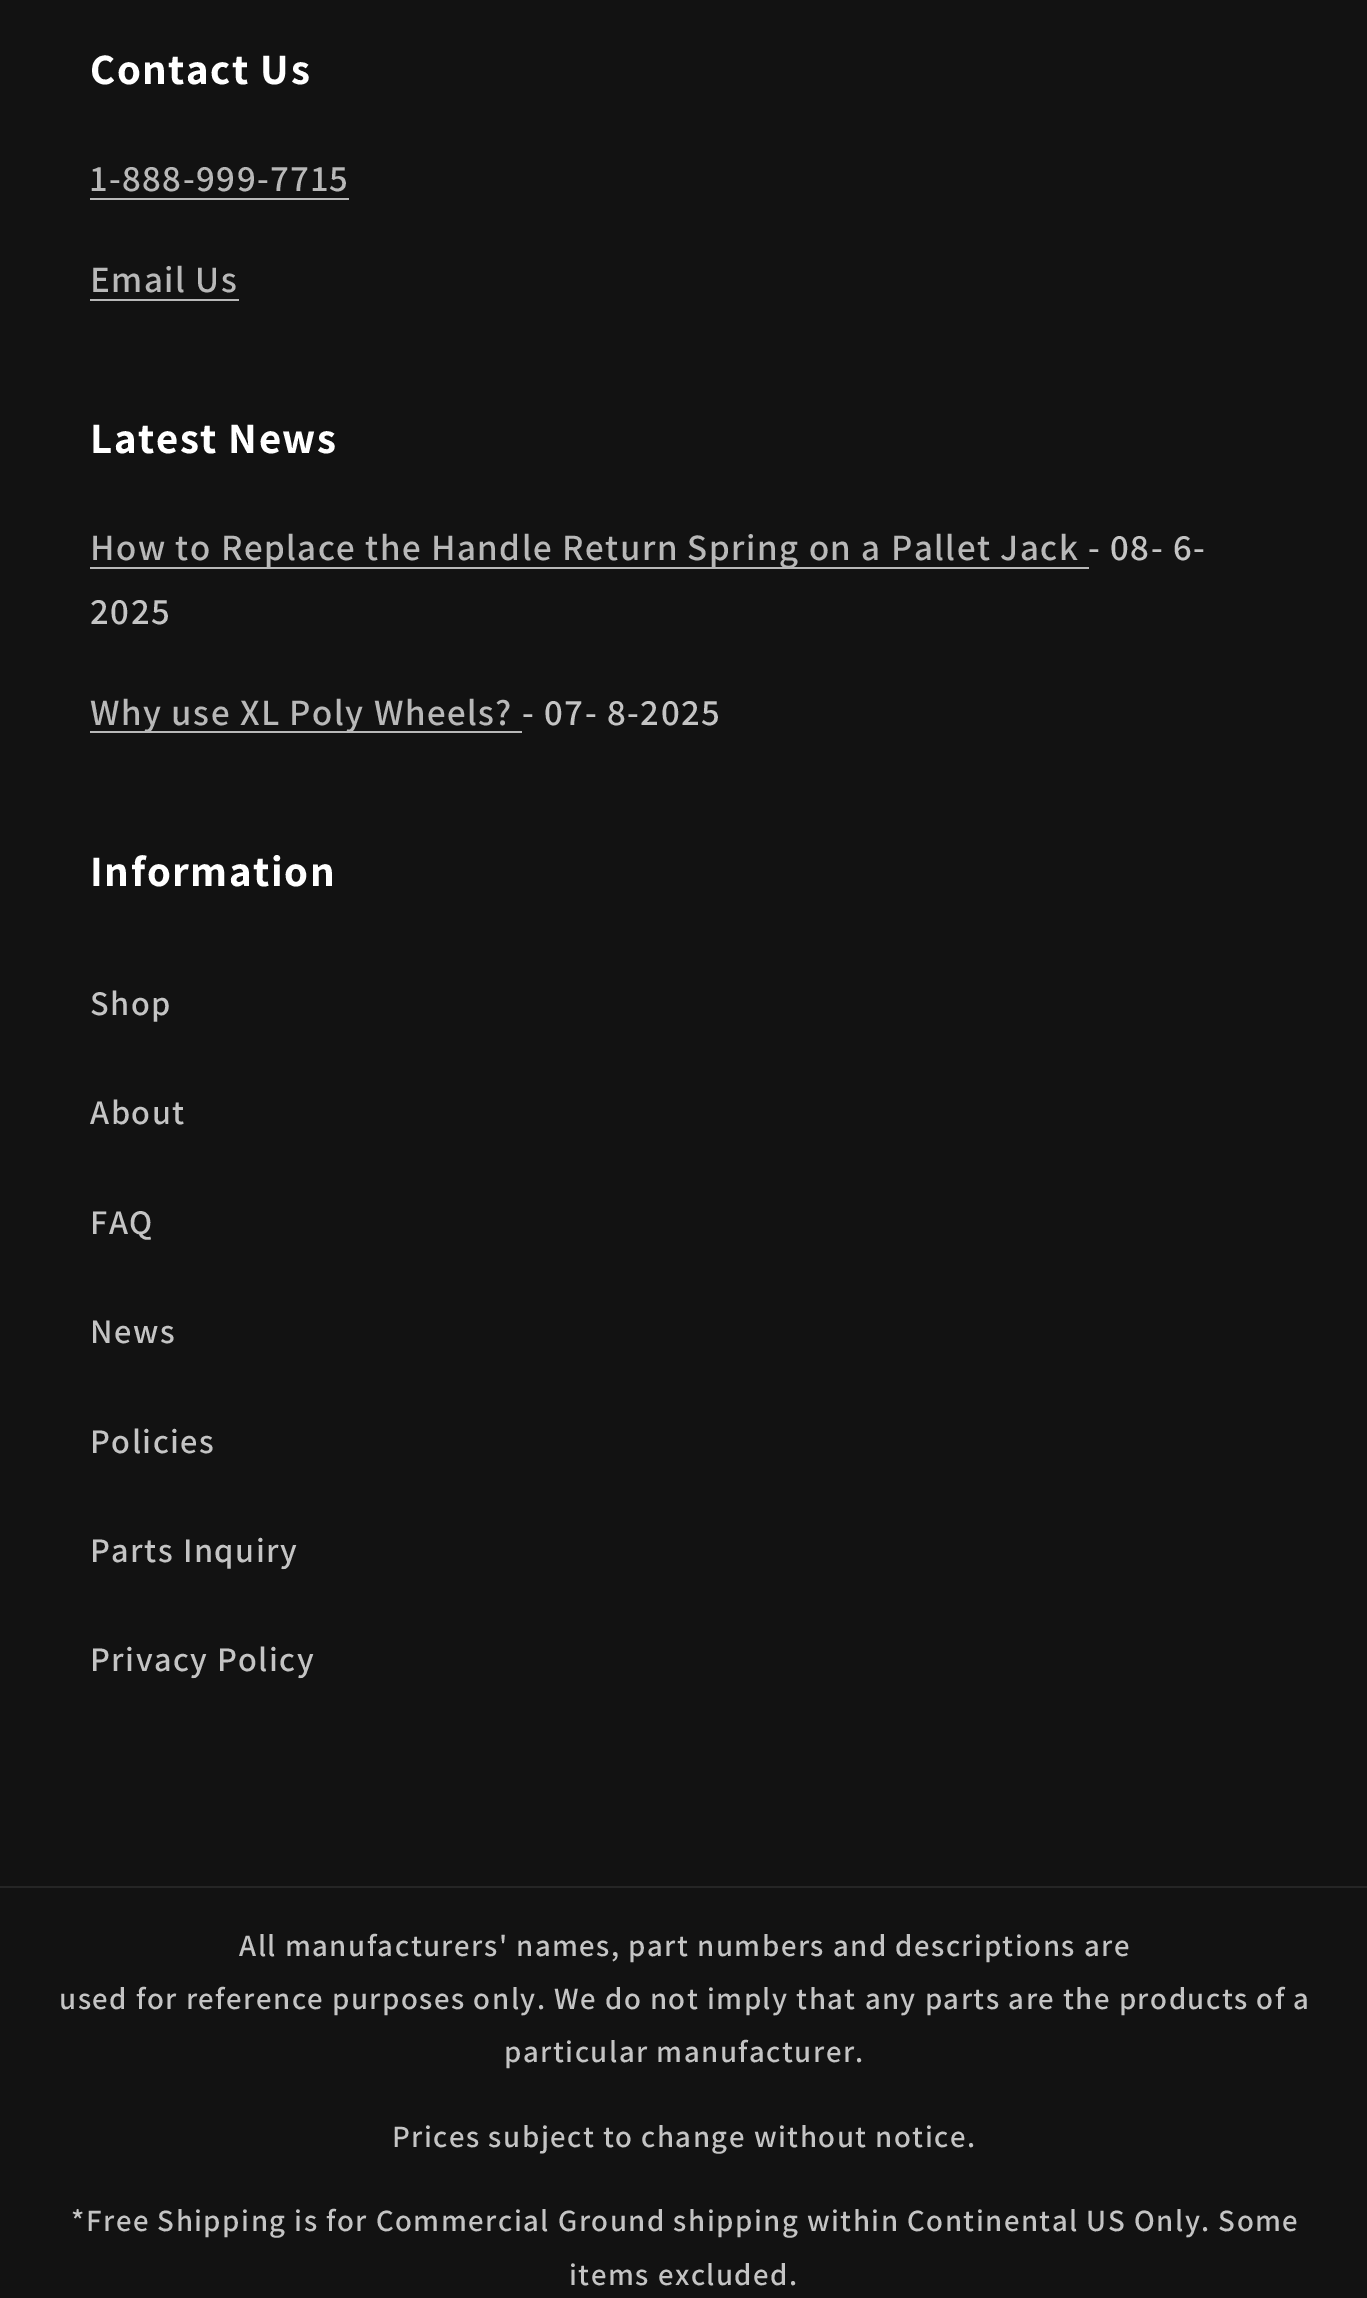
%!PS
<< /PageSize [1367 2298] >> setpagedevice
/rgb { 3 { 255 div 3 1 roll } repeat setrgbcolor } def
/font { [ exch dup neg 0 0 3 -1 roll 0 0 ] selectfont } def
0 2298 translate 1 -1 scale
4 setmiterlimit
18 18 18 rgb
0 0 1367 2298 rectfill
[
  [90 198 259 2 184 184 184]
  [90 299 149 2 184 184 184]
  [90 567 999 2 184 184 184]
  [90 731 432 2 184 184 184]
  [0 1886 1367 2 37 37 37]
] { aload pop rgb rectfill } forall
/Assistant-Bold 43.25 font
255 255 255 rgb
90 84 moveto 1.6 0 (Contact Us) ashow
/Assistant-SemiBold 37.1 font
184 184 184 rgb
90 191 moveto 1.5 0 (1-888-999-7715) ashow
90 292 moveto 1.5 0 (Email Us) ashow
/Assistant-Bold 43.25 font
255 255 255 rgb
90 453 moveto 1.6 0 (Latest News) ashow
/Assistant-SemiBold 37.1 font
184 184 184 rgb
90 560 moveto 1.5 0 (How to Replace the Handle Return Spring on a Pallet Jack) ashow
196 196 196 rgb
1088 560 moveto 1.5 0 (- 08- 6-) ashow
90 624 moveto 1.5 0 (2025) ashow
184 184 184 rgb
90 725 moveto 1.5 0 (Why use XL Poly Wheels?) ashow
196 196 196 rgb
522 725 moveto 1.5 0 (- 07- 8-2025) ashow
/Assistant-Bold 43.25 font
255 255 255 rgb
90 886 moveto 1.6 0 (Information) ashow
/Assistant-SemiBold 34.5 font
196 196 196 rgb
90 1015 moveto 1.5 0 (Shop) ashow
90 1124 moveto 1.5 0 (About) ashow
90 1234 moveto 1.5 0 (FAQ) ashow
90 1343 moveto 1.5 0 (News) ashow
90 1453 moveto 1.5 0 (Policies) ashow
90 1562 moveto 1.5 0 (Parts Inquiry) ashow
90 1671 moveto 1.5 0 (Privacy Policy) ashow
/Assistant-SemiBold 30.95 font
239 1956 moveto 1.5 0 (All manufacturers' names, part numbers and descriptions are) ashow
59 2009 moveto 1.5 0 (used for reference purposes only. We do not imply that any parts are the products of a) ashow
504 2062 moveto 1.5 0 (particular manufacturer.) ashow
392 2147 moveto 1.5 0 (Prices subject to change without notice.) ashow
71 2231 moveto 1.5 0 (*Free Shipping is for Commercial Ground shipping within Continental US Only. Some) ashow
569 2285 moveto 1.5 0 (items excluded.) ashow
showpage
